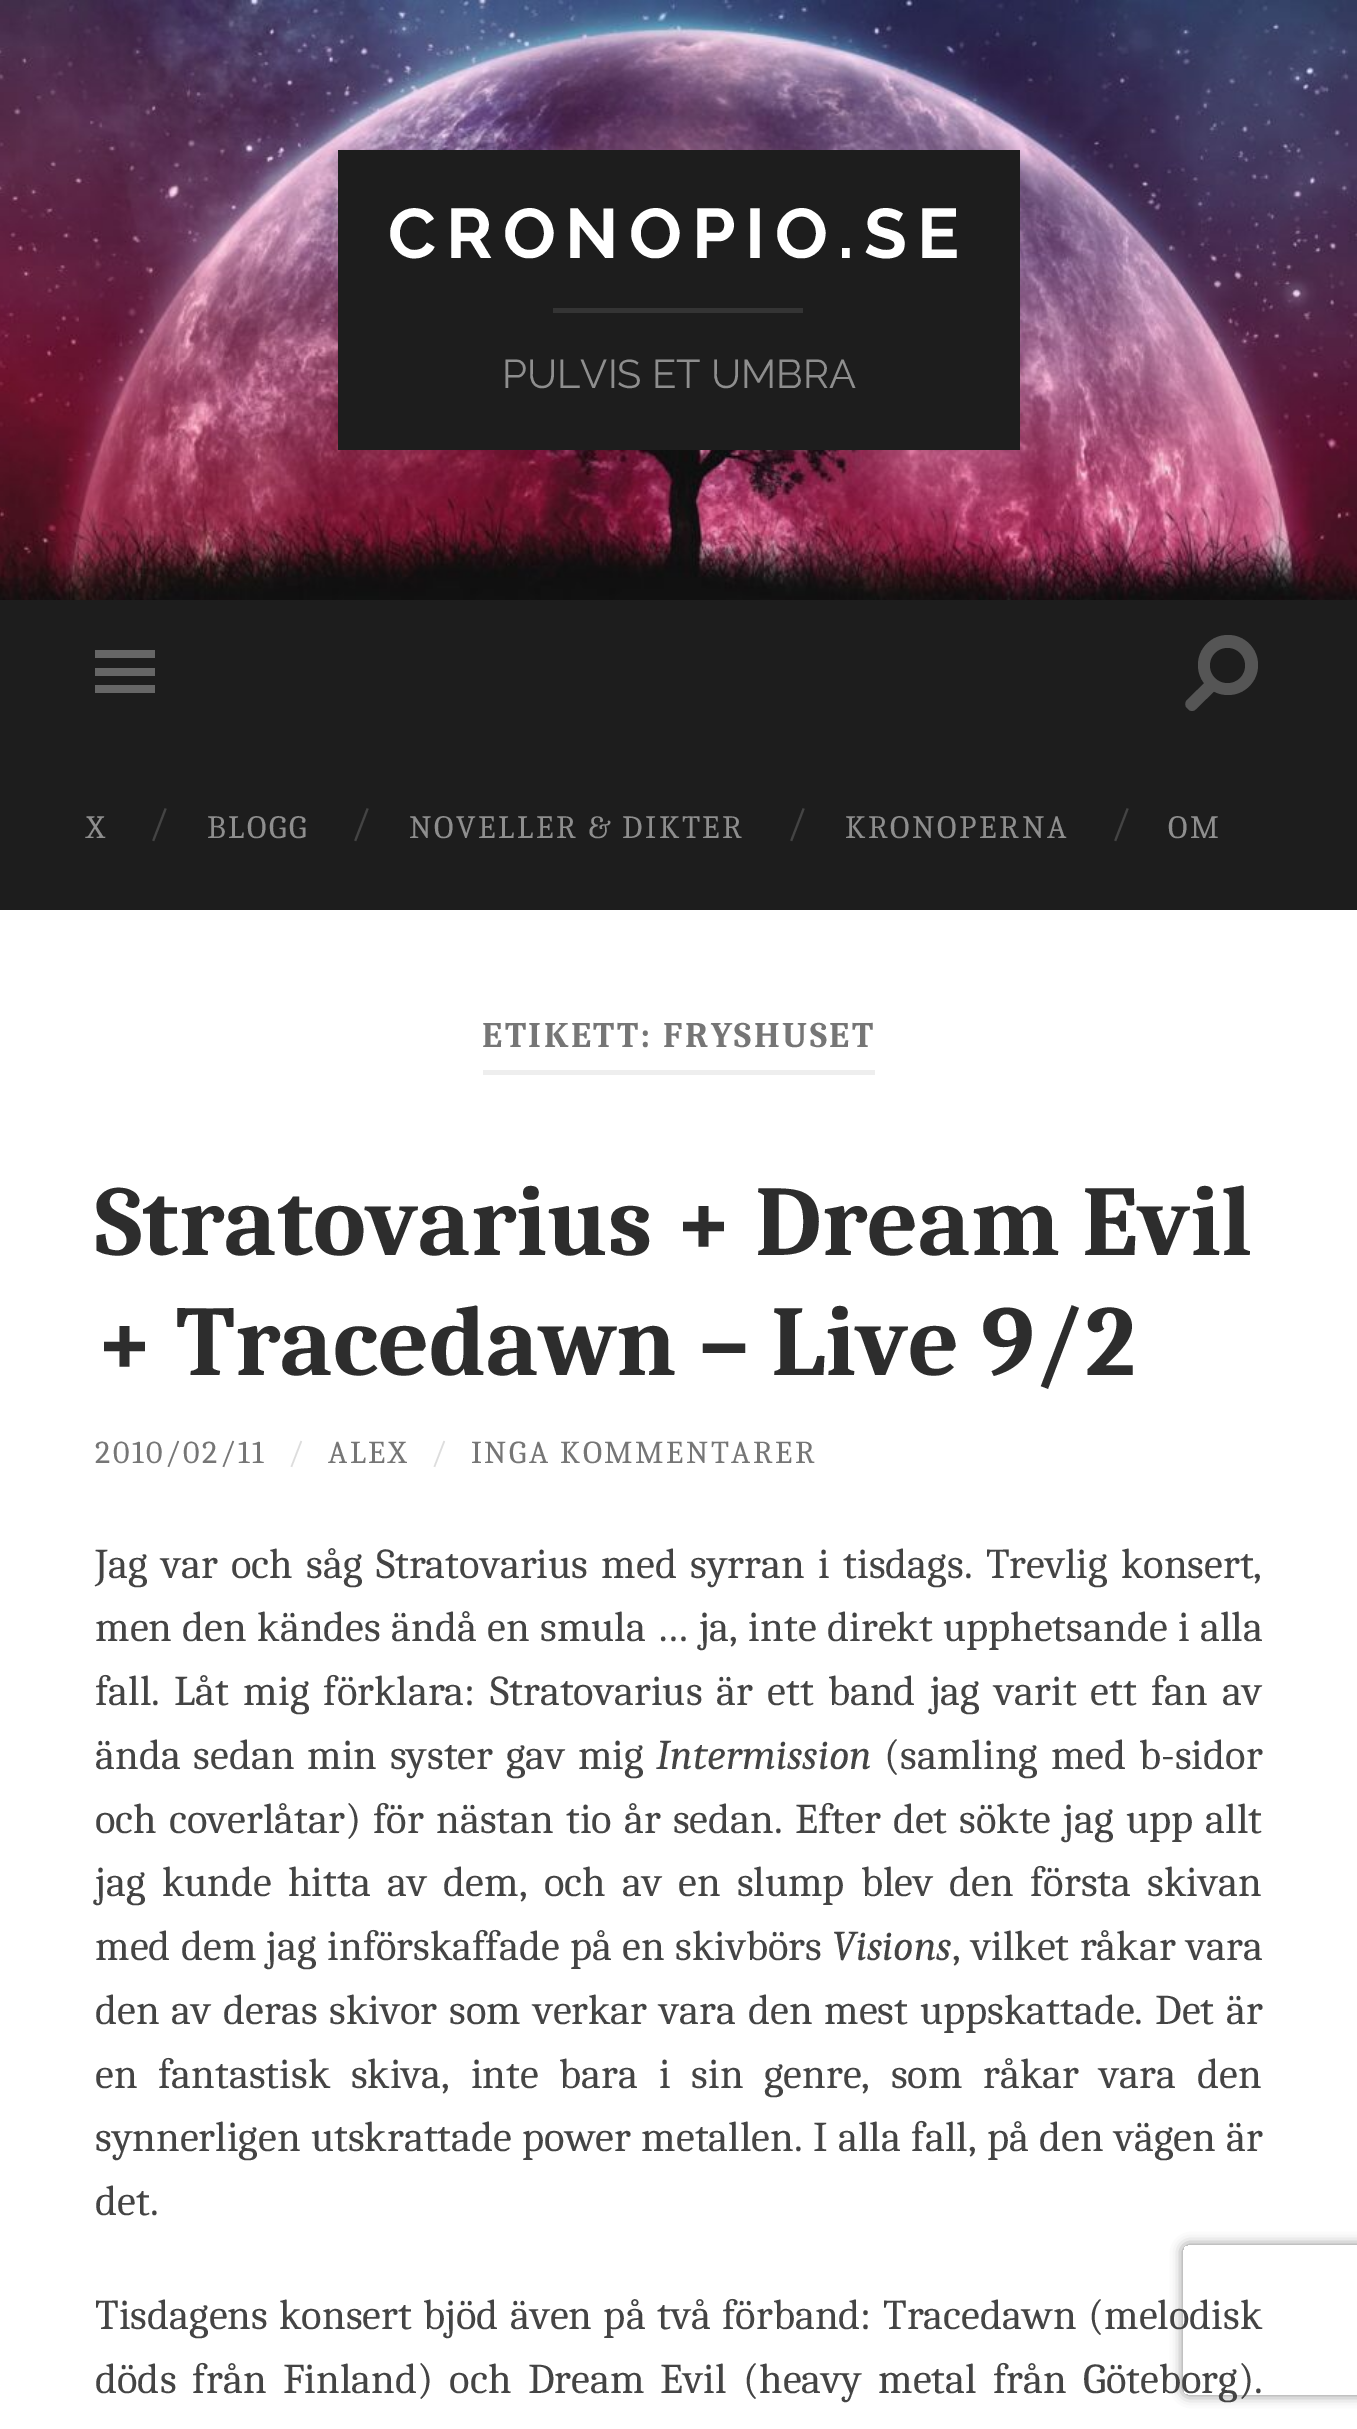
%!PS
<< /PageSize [1357 2429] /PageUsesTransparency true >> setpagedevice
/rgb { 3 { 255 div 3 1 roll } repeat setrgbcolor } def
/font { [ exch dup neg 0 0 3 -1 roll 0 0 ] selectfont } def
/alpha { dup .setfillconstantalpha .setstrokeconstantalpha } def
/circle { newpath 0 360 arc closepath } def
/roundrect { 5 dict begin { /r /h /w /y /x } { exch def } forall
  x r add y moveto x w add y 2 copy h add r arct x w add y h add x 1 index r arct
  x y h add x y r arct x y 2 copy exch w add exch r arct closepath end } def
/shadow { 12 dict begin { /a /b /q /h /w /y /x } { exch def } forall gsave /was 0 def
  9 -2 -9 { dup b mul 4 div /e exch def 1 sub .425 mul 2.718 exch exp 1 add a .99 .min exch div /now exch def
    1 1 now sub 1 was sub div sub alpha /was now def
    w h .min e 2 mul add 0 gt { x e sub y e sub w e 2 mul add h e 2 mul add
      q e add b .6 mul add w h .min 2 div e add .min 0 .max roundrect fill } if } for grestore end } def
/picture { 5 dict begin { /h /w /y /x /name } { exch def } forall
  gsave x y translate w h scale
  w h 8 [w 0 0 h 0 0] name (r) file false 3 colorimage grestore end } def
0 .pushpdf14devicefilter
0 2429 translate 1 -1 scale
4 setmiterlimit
255 255 255 rgb
0 0 1357 2429 rectfill
(img/1.rgb) 0 0 1357 600 picture
[
  [338 150 682 300 29 29 29]
  [553 308 250 5 52 52 52]
  [0 600 1357 310 29 29 29]
  [95 650 60 8 102 102 102]
  [95 668 60 8 102 102 102]
  [95 685 60 8 102 102 102]
] { aload pop rgb rectfill } forall
85 85 85 rgb
1228 665 30 circle fill
29 29 29 rgb
1227.5 665.5 17.5 circle fill
85 85 85 rgb
1186.5 700.5 moveto 1208 679.5 lineto 1217 688.5 lineto 1195.5 709.5 lineto 1193.5 711.5 1190.5 711.5 1188.5 709.5 curveto 1186.5 707.5 lineto 1185 706 1185 702.5 1186.5 700.5 curveto closepath fill
238 238 238 rgb
483 1070 392 5 rectfill
gsave
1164 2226 moveto 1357 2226 lineto 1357 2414 lineto 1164 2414 lineto closepath 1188 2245 moveto 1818 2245 lineto 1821 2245 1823 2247 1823 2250 curveto 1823 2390 lineto 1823 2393 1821 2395 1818 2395 curveto 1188 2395 lineto 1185 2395 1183 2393 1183 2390 curveto 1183 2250 lineto 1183 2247 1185 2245 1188 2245 curveto closepath eoclip newpath
128 128 128 rgb
1183 2245 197 150 5 6 1 shadow
grestore
/Raleway-Thin 70 font
255 255 255 rgb
388 258 moveto 10 0 (CRONOPIO.SE) ashow
/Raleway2-Thin 40 font
142 142 142 rgb
502 388 moveto (PULVIS ET UMBRA) show
/Caladea-Regular 32.5 font
86 838 moveto 2.5 0 (X) ashow
/Caladea-Regular 40 font
68 68 68 rgb
149 836 moveto (/) show
/Caladea-Regular 32.5 font
142 142 142 rgb
207 838 moveto 2.5 0 (BLOGG) ashow
/Caladea-Regular 40 font
68 68 68 rgb
351 836 moveto (/) show
/Caladea-Regular 32.5 font
142 142 142 rgb
409 838 moveto 2.5 0 (NOVELLER & DIKTER) ashow
/Caladea-Regular 40 font
68 68 68 rgb
787 836 moveto (/) show
/Caladea-Regular 32.5 font
142 142 142 rgb
845 838 moveto 2.5 0 (KRONOPERNA) ashow
/Caladea-Regular 40 font
68 68 68 rgb
1111 836 moveto (/) show
/Caladea-Regular 32.5 font
142 142 142 rgb
1168 838 moveto 2.5 0 (OM) ashow
/Caladea-Bold 36 font
118 118 118 rgb
482 1047 moveto 2.5 0 (ETIKETT: FRYSHUSET) ashow
/Caladea-Bold 100 font
45 45 45 rgb
95 1255 moveto (Stratovarius + Dream Evil) show
95 1375 moveto (+ Tracedawn – Live 9/2) show
/Caladea-Regular 32 font
118 118 118 rgb
95 1463 moveto 2.5 0 (2010/02/11) ashow
221 221 221 rgb
288 1463 moveto 2.5 0 (/) ashow
118 118 118 rgb
328 1463 moveto 2.5 0 (ALEX) ashow
221 221 221 rgb
431 1463 moveto 2.5 0 (/) ashow
118 118 118 rgb
471 1463 moveto 2.5 0 (INGA KOMMENTARER) ashow
/Caladea-Regular 42.5 font
68 68 68 rgb
95 1578 moveto 4 0 32 (Jag var och såg Stratovarius med syrran i tisdags. Trevlig konsert,) widthshow
95 1641 moveto 1 0 32 (men den kändes ändå en smula … ja, inte direkt upphetsande i alla) widthshow
95 1705 moveto 4.75 0 32 (fall. Låt mig förklara: Stratovarius är ett band jag varit ett fan av) widthshow
95 1769 moveto 3.25 0 32 (ända sedan min syster gav mig) widthshow
/Caladea-Italic 42.5 font
656 1769 moveto (Intermission) show
/Caladea-Regular 42.5 font
884 1769 moveto 3.25 0 32 (\(samling med b-sidor) widthshow
95 1833 moveto 2.75 0 32 (och coverlåtar\) för nästan tio år sedan. Efter det sökte jag upp allt) widthshow
95 1896 moveto 6.9 0 32 (jag kunde hitta av dem, och av en slump blev den första skivan) widthshow
95 1960 moveto 1 0 32 (med dem jag införskaffade på en skivbörs) widthshow
/Caladea-Italic 42.5 font
832 1960 moveto (Visions) show
/Caladea-Regular 42.5 font
952 1960 moveto 1 0 32 (, vilket råkar vara) widthshow
95 2024 moveto 2.5 0 32 (den av deras skivor som verkar vara den mest uppskattade. Det är) widthshow
95 2088 moveto 11.25 0 32 (en fantastisk skiva, inte bara i sin genre, som råkar vara den) widthshow
95 2151 moveto 1 0 32 (synnerligen utskrattade power metallen. I alla fall, på den vägen är) widthshow
95 2215 moveto (det.) show
95 2329 moveto 2 0 32 (Tisdagens konsert bjöd även på två förband: Tracedawn \(melodisk) widthshow
95 2393 moveto 6.9 0 32 (döds från Finland\) och Dream Evil \(heavy metal från Göteborg\).) widthshow
.poppdf14devicefilter showpage
